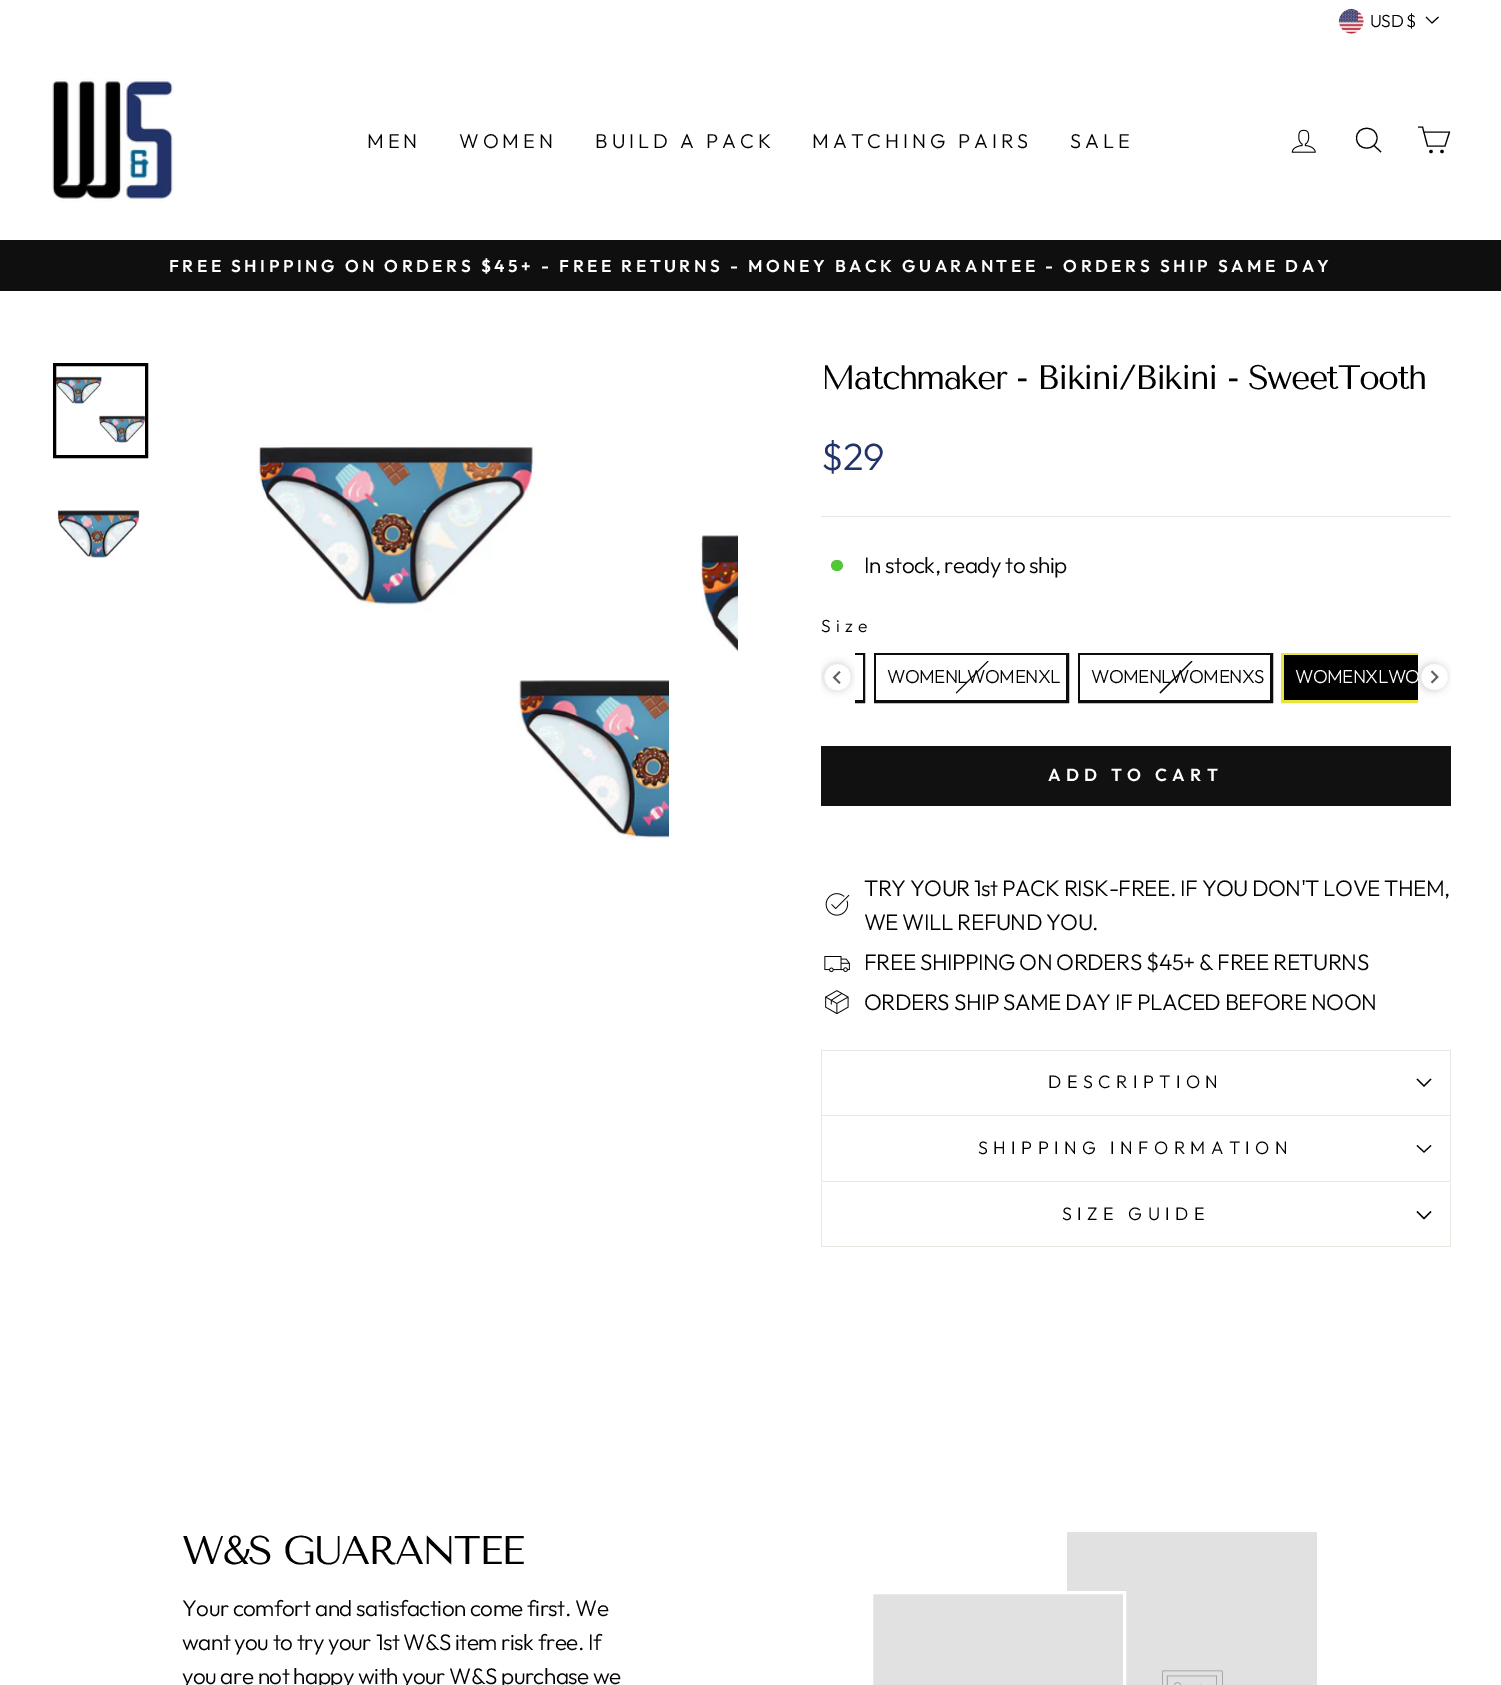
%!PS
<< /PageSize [1501 1685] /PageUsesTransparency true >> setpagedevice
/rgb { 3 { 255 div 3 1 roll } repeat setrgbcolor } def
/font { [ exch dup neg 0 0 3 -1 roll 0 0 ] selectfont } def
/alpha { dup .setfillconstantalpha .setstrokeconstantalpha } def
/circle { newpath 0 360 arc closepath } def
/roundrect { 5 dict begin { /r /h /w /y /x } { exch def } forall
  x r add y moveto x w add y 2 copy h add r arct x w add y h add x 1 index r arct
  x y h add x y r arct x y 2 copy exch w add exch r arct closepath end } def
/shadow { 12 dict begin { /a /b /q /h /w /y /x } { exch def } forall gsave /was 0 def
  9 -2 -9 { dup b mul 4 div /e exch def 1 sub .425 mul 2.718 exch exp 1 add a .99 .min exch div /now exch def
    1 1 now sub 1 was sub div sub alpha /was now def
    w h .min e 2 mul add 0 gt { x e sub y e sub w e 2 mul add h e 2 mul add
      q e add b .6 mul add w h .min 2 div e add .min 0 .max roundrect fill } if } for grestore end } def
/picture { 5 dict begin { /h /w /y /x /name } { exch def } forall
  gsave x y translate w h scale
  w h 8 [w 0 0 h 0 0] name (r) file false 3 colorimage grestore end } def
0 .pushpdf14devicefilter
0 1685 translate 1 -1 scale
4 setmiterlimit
255 255 255 rgb
0 0 1501 1685 rectfill
(img/1.rgb) 1338 8 26 26 picture
0 0 0 rgb
1426 17 moveto 1432 23 lineto 1438.5 17 lineto stroke
(img/2.rgb) 52 78 123 124 picture
(img/3.rgb) 1291 129 25 24 picture
1.1 setlinewidth
1377 138 moveto 1377 151.5 1356.5 151.5 1356.5 138 curveto 1356.5 125 1377 125 1377 138 curveto closepath 1381 152 moveto 1374 145.5 lineto stroke
1424 132 moveto 1449.5 132 lineto 1445 146 lineto 1427.5 146 lineto 1422.5 127 lineto 1418 127 lineto stroke
1431 151.5 1.1 circle gsave fill grestore
stroke
1442 151.5 1.1 circle gsave fill grestore
stroke
15 15 15 rgb
0 240 1501 51 rectfill
(img/4.rgb) 56 376 89 67 picture
0 0 0 rgb
3 setlinewidth
54.5 364.5 92 92 rectstroke
(img/5.rgb) 57 510 84 48 picture
(img/6.rgb) 256 444 413 396 picture
(img/7.rgb) 699 535 39 117 picture
232 232 225 rgb
821 516 630 1 rectfill
84 198 58 rgb
831 560 12 11 5.5 roundrect fill
gsave
855 640 563 75 rectclip
12 12 12 rgb
684.5 654.5 179 47 rectstroke
grestore
255 255 255 rgb
855 655 8 45 rectfill
gsave
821 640 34 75 rectclip
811 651 moveto 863 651 lineto 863 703 lineto 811 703 lineto closepath 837.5 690.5 moveto 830.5 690.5 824.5 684.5 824.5 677 curveto 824.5 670 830.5 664 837.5 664 curveto 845 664 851 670 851 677 curveto 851 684.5 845 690.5 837.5 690.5 curveto closepath eoclip newpath
0 0 0 rgb
824 664 26 26 13 4 0.2 shadow
grestore
0.65 alpha
837.5 690.5 moveto 820 690.5 820 664 837.5 664 curveto 855 664 855 690.5 837.5 690.5 curveto closepath fill
1 alpha
(img/8.rgb) 832 671 9 13 picture
12 12 12 rgb
875.5 654.5 192 47 rectstroke
255 255 255 rgb
876 655 190 45 rectfill
0 0 0 rgb
987.5 661 moveto 988.5 661.5 lineto 956.5 693.5 lineto 956 692.5 lineto closepath fill
12 12 12 rgb
1079.5 654.5 192 47 rectstroke
255 255 255 rgb
1080 655 190 45 rectfill
0 0 0 rgb
1191.5 661 moveto 1192.5 661.5 lineto 1160.5 693.5 lineto 1159.5 692.5 lineto closepath fill
gsave
855 640 563 75 rectclip
232 228 60 rgb
1282.5 654.5 205 47 rectstroke
grestore
1284 655 134 45 rectfill
gsave
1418 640 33 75 rectclip
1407 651 moveto 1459 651 lineto 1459 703 lineto 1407 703 lineto closepath 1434 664 moveto 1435 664 lineto 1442 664 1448 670 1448 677 curveto 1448 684 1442 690 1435 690 curveto 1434 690 lineto 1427 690 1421 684 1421 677 curveto 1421 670 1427 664 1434 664 curveto closepath eoclip newpath
1420 664 26 26 13 4 0.2 shadow
grestore
0.65 alpha
255 255 255 rgb
1421 664 27 26 13 roundrect fill
1 alpha
(img/9.rgb) 1430 670 9 14 picture
17 17 17 rgb
821 746 630 60 rectfill
(img/10.rgb) 825 893 25 23 picture
(img/11.rgb) 824 956 26 17 picture
(img/12.rgb) 825 990 24 25 picture
[
  [821 1115 630 1 232 232 225]
  [821 1050 630 1 232 232 225]
  [1450 1050 1 65 232 232 225]
  [821 1050 1 65 232 232 225]
] { aload pop rgb rectfill } forall
0 0 0 rgb
1.1 setlinewidth
1417 1079 moveto 1424 1086 lineto 1431 1079 lineto stroke
[
  [821 1181 630 1 232 232 225]
  [1450 1116 1 65 232 232 225]
  [821 1116 1 65 232 232 225]
] { aload pop rgb rectfill } forall
0 0 0 rgb
1417 1145.5 moveto 1424 1152 lineto 1431 1145.5 lineto stroke
[
  [821 1246 630 1 232 232 225]
  [1450 1183 1 63 232 232 225]
  [821 1183 1 63 232 232 225]
] { aload pop rgb rectfill } forall
0 0 0 rgb
1417 1211.5 moveto 1424 1218.5 lineto 1431 1211.5 lineto stroke
225 225 225 rgb
873 1594 194 91 rectfill
1067 1532 250 153 rectfill
255 255 255 rgb
3 setlinewidth
871.5 1592.5 253 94 rectstroke
(img/13.rgb) 1162 1670 61 15 picture
/Outfit-Light 17.5 font
0 0 0 rgb
1370 27 moveto -0.5 0 (USD $) ashow
/Outfit-Light 20 font
367 148 moveto 4 0 (MEN) ashow
459 148 moveto 4 0 (WOMEN) ashow
595 148 moveto 4 0 (BUILD A PACK) ashow
812 148 moveto 4 0 (MATCHING PAIRS) ashow
1070 148 moveto 4 0 (SALE) ashow
/Outfit-SemiBold 17.2 font
255 255 255 rgb
169 272 moveto 3.45 0 (FREE SHIPPING ON ORDERS $45+ - FREE RETURNS - MONEY BACK GUARANTEE - ORDERS SHIP SAME DAY) ashow
/TenorSans-Regular 34 font
0 0 0 rgb
821 389 moveto -1.7 0 (Matchmaker - Bikini/Bikini - SweetTooth) ashow
/Outfit-Light 38 font
33 51 104 rgb
821 470 moveto -0.55 0 ($29) ashow
/Outfit-Light 22.5 font
0 0 0 rgb
864 573 moveto -0.55 0 (In stock, ready to ship) ashow
/Outfit-Light 17.5 font
821 632 moveto 5.25 0 (Size) ashow
/Outfit-Light 18.75 font
887 683 moveto -0.55 0 (WOMENLWOMENXL) ashow
1091 683 moveto -0.55 0 (WOMENLWOMENXS) ashow
gsave
1284 655 134 45 rectclip
255 255 255 rgb
1295 683 moveto -0.55 0 (WOMENXLWO) ashow
grestore
/Outfit-SemiBold 17.5 font
255 255 255 rgb
1048 781 moveto 5.25 0 (ADD TO CART) ashow
/Outfit-Light 22.5 font
0 0 0 rgb
864 896 moveto -0.55 0 (TRY YOUR 1st PACK RISK-FREE. IF YOU DON'T LOVE THEM,) ashow
864 930 moveto -0.55 0 (WE WILL REFUND YOU.) ashow
864 970 moveto -0.55 0 (FREE SHIPPING ON ORDERS $45+ & FREE RETURNS) ashow
864 1010 moveto -0.55 0 (ORDERS SHIP SAME DAY IF PLACED BEFORE NOON) ashow
/Outfit-Light 18 font
1048 1088 moveto 5.4 0 (DESCRIPTION) ashow
978 1154 moveto 5.4 0 (SHIPPING INFORMATION) ashow
1062 1220 moveto 5.4 0 (SIZE GUIDE) ashow
/TenorSans-Regular 40 font
182 1564 moveto -2 0 (W&S GUARANTEE) ashow
/Outfit-Light 22.5 font
182 1616 moveto -0.55 0 (Your comfort and satisfaction come first. We) ashow
182 1650 moveto -0.55 0 (want you to try your 1st W&S item risk free. If) ashow
182 1684 moveto -0.55 0 (you are not happy with your W&S purchase we) ashow
.poppdf14devicefilter showpage
